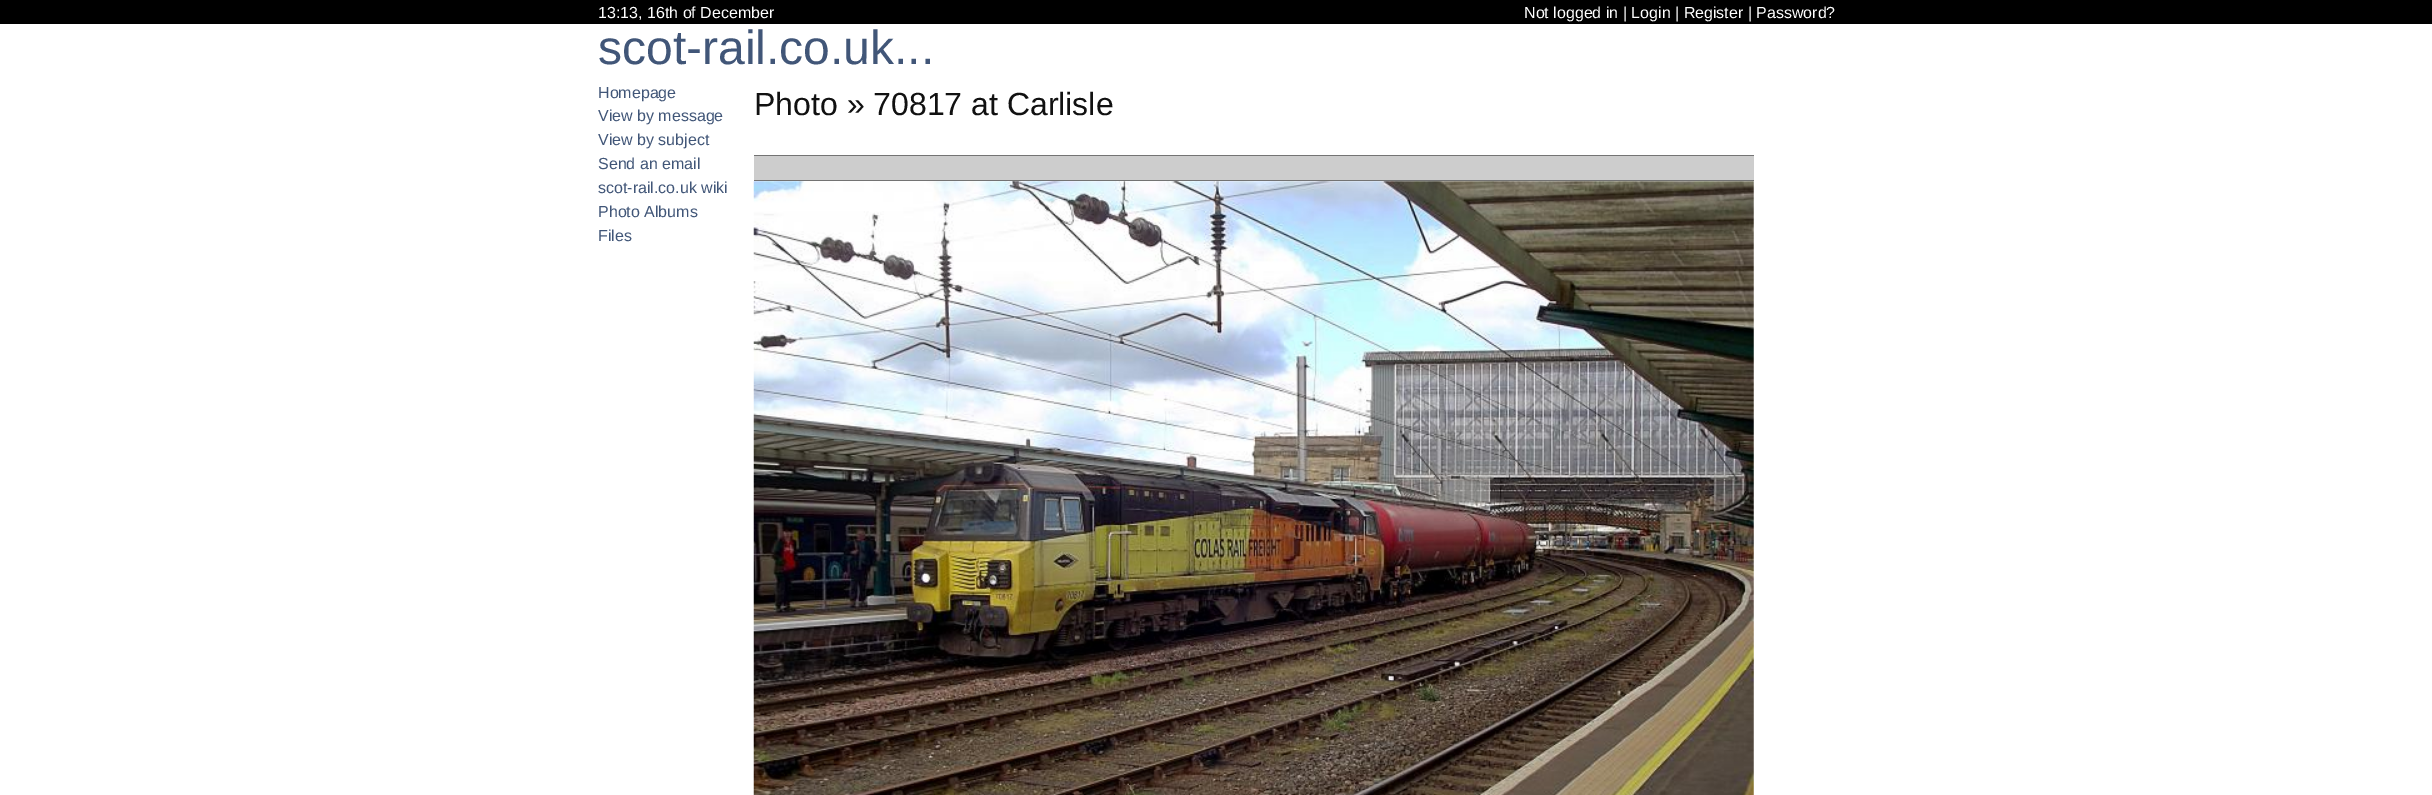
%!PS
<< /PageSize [2432 795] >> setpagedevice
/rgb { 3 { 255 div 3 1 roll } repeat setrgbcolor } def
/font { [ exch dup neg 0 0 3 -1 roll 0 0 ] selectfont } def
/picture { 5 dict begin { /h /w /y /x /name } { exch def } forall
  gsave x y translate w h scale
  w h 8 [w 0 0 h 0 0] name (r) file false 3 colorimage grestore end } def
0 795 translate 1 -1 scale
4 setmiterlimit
255 255 255 rgb
0 0 2432 795 rectfill
[
  [0 0 2432 24 0 0 0]
  [754 156 1000 24 205 205 205]
  [754 155 1000 1 115 115 115]
  [754 180 1000 1 115 115 115]
] { aload pop rgb rectfill } forall
(img/1.rgb) 753 181 1001 614 picture
/LiberationSans-Regular 16 font
255 255 255 rgb
598 18 moveto (13:13, 16th of December) show
1524 18 moveto (Not logged in | Login | Register | Password?) show
/LiberationSans-Regular 48 font
65 86 120 rgb
598 64 moveto (scot-rail.co.uk...) show
/LiberationSans-Regular 16 font
[
  [(Homepage) 598 98]
  [(View by message) 598 121]
  [(View by subject) 598 145]
  [(Send an email) 598 169]
  [(scot-rail.co.uk wiki) 598 193]
  [(Photo Albums) 598 217]
  [(Files) 598 241]
] { aload pop moveto show } forall
/LiberationSans-Regular 32 font
17 17 17 rgb
754 115 moveto (Photo » 70817 at Carlisle) show
showpage
